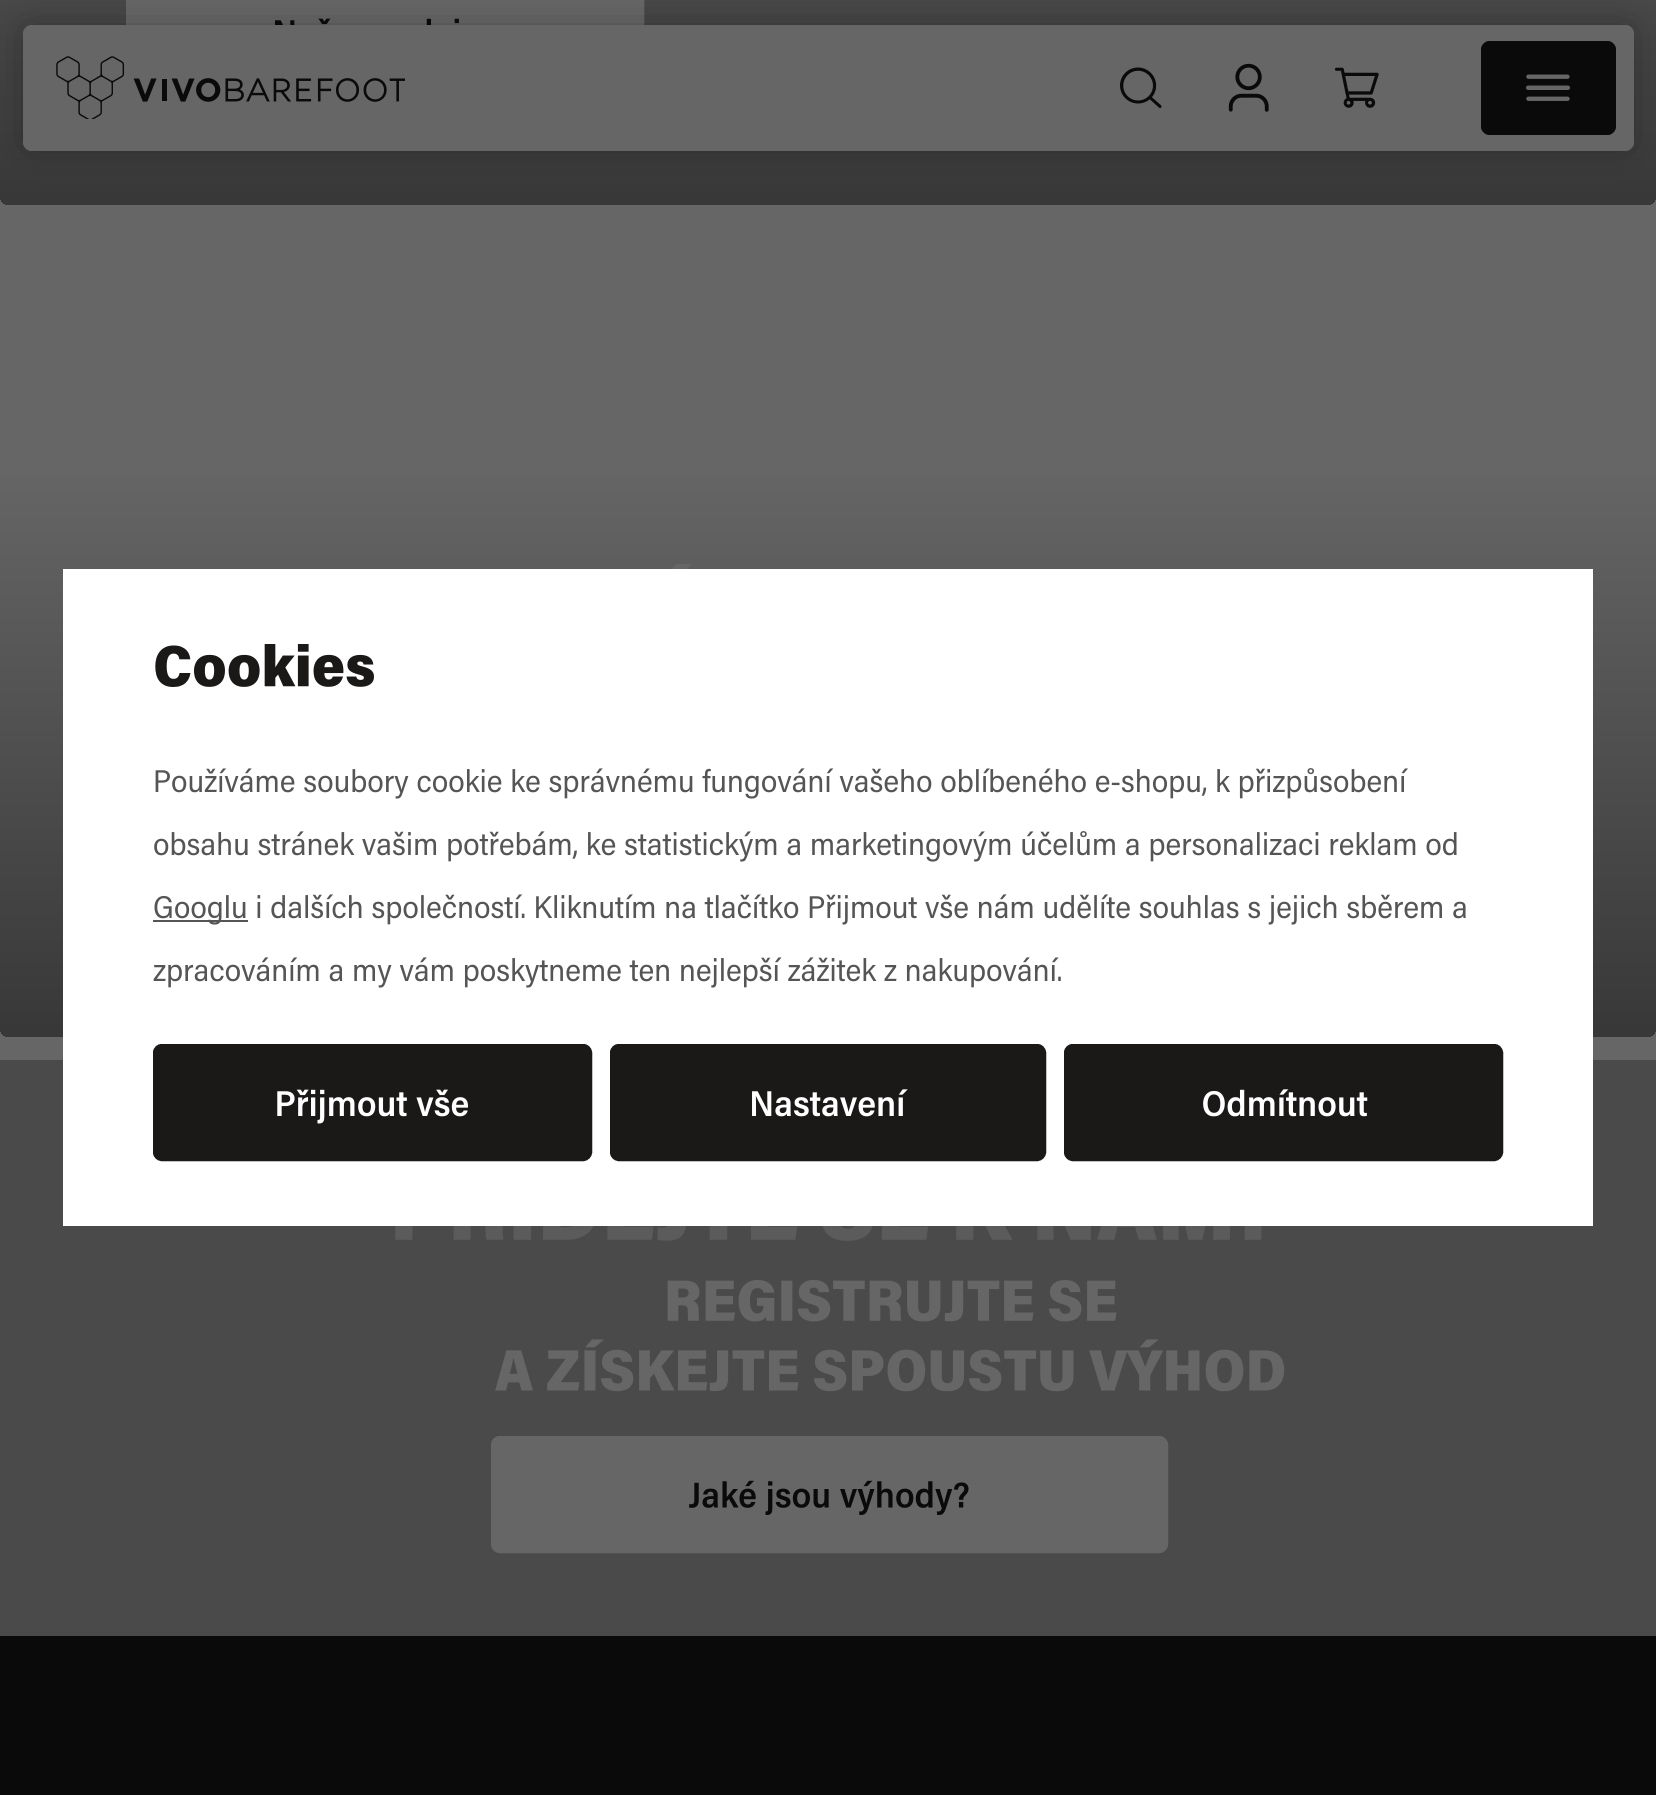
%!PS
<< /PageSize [1656 1795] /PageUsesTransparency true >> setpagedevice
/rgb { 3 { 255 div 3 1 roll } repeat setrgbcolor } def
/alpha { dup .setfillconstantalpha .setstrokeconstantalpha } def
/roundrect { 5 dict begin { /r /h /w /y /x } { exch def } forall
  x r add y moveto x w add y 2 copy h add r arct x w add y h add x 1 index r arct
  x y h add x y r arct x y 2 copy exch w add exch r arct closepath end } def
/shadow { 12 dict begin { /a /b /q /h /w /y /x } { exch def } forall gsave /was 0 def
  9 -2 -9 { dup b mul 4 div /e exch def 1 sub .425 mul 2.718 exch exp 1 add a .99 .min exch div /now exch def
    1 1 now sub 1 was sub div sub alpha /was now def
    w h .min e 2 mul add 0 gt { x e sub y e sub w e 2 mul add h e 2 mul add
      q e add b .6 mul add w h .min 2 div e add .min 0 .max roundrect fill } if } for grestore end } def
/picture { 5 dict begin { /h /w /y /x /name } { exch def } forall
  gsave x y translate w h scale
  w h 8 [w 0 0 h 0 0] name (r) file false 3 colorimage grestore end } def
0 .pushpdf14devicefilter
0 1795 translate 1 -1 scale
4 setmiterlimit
102 102 102 rgb
0 0 1656 1795 rectfill
gsave 0 -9 1656 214 9 roundrect clip newpath
<< /ShadingType 2 /ColorSpace /DeviceRGB /Coords [828 205 828 -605] /Extend [true true] /Function << /FunctionType 3 /Domain [0 1] /Functions [<< /FunctionType 2 /Domain [0 1] /C0 [0.22 0.22 0.22] /C1 [0.4 0.4 0.4] /N 1 >> << /FunctionType 2 /Domain [0 1] /C0 [0.4 0.4 0.4] /C1 [0.4 0.4 0.4] /N 1 >>] /Bounds [0.7] /Encode [0 1 0 1] >> >> shfill grestore
131 0 508 25 rectfill
5 setlinewidth
128.5 -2.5 513 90 rectstroke
(img/1.rgb) 275 18 184 7 picture
gsave 0 227 1656 810 9 roundrect clip newpath
<< /ShadingType 2 /ColorSpace /DeviceRGB /Coords [828 1037 828 227] /Extend [true true] /Function << /FunctionType 3 /Domain [0 1] /Functions [<< /FunctionType 2 /Domain [0 1] /C0 [0.22 0.22 0.22] /C1 [0.4 0.4 0.4] /N 1 >> << /FunctionType 2 /Domain [0 1] /C0 [0.4 0.4 0.4] /C1 [0.4 0.4 0.4] /N 1 >>] /Bounds [0.7] /Encode [0 1 0 1] >> >> shfill grestore
(img/2.rgb) 671 564 22 5 picture
0 0 0 rgb
25 27 1606 122 7 16 0.28 shadow
102 102 102 rgb
23 25 1611 126 9 roundrect fill
(img/3.rgb) 56 56 349 63 picture
(img/4.rgb) 1120 67 42 41 picture
(img/5.rgb) 1228 63 41 49 picture
(img/6.rgb) 1334 67 45 41 picture
11 10 10 rgb
1481 41 135 94 9 roundrect fill
(img/7.rgb) 1526 74 44 27 picture
75 74 74 rgb
0 1060 1656 576 rectfill
255 255 255 rgb
63 569 1530 657 rectfill
(img/8.rgb) 155 644 219 43 picture
(img/9.rgb) 155 768 1253 31 picture
(img/10.rgb) 154 831 1303 31 picture
85 85 85 rgb
153 920 95 2 rectfill
(img/11.rgb) 154 895 92 30 picture
(img/12.rgb) 257 894 1209 31 picture
(img/13.rgb) 153 957 908 31 picture
27 24 24 rgb
155.5 1046.5 434 112 6.5 roundrect gsave fill grestore
stroke
(img/14.rgb) 277 1089 192 35 picture
612.5 1046.5 431 112 6.5 roundrect gsave fill grestore
stroke
(img/15.rgb) 752 1089 156 28 picture
1066.5 1046.5 434 112 6.5 roundrect gsave fill grestore
stroke
(img/16.rgb) 1203 1089 165 28 picture
(img/17.rgb) 395 1226 867 15 picture
(img/18.rgb) 667 1280 450 42 picture
(img/19.rgb) 495 1339 790 53 picture
102 102 102 rgb
493.5 1438.5 672 112 6.5 roundrect gsave fill grestore
stroke
(img/20.rgb) 689 1480 280 35 picture
11 10 10 rgb
0 1636 1656 159 rectfill
.poppdf14devicefilter showpage
